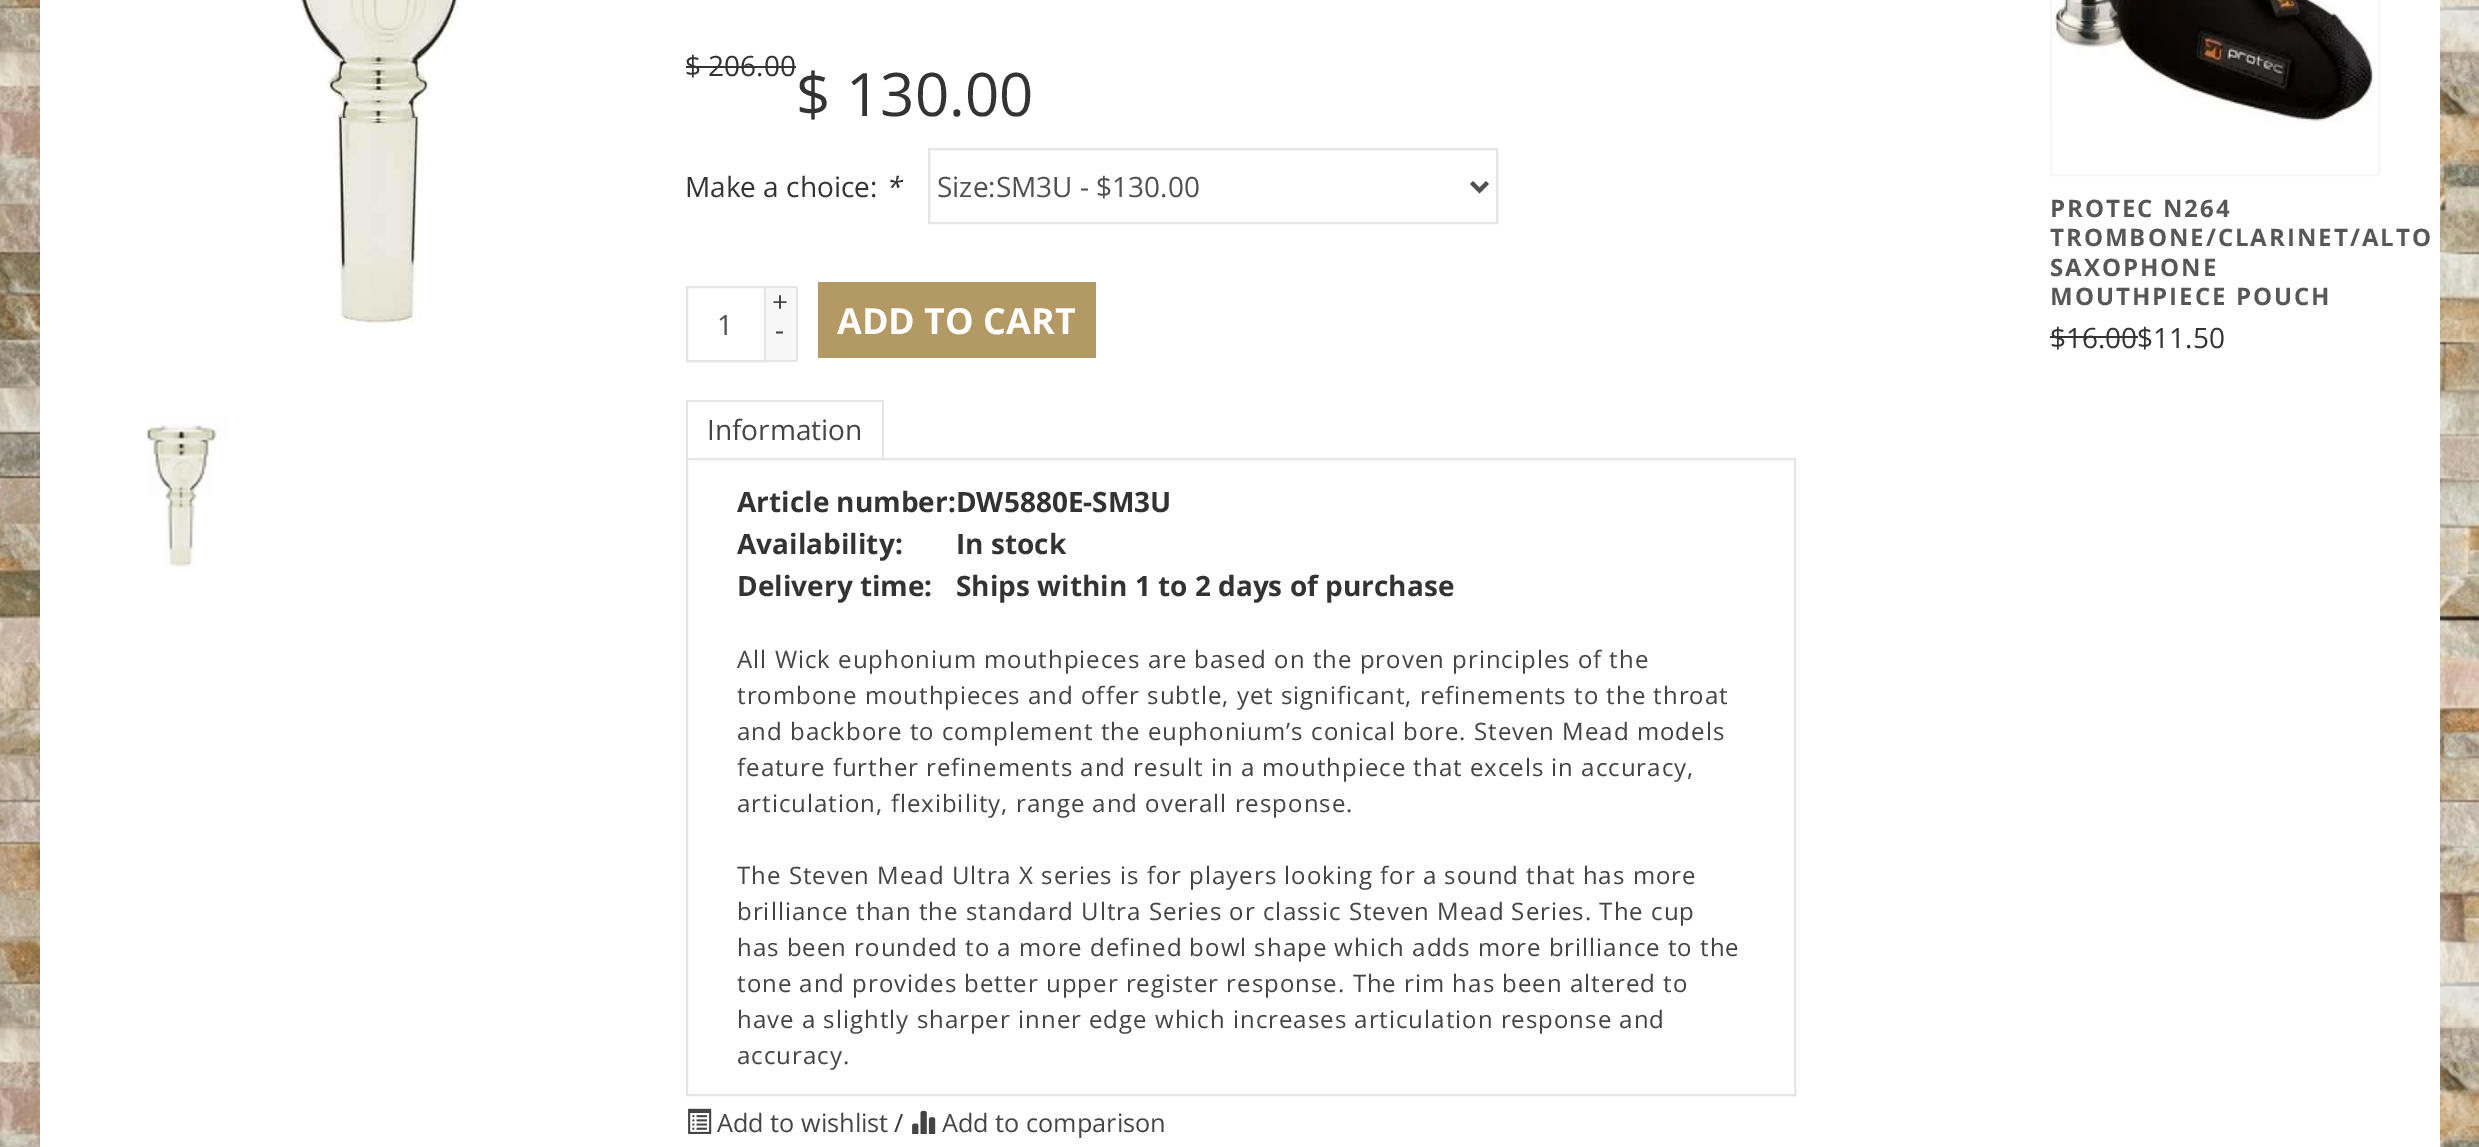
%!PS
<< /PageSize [2479 1147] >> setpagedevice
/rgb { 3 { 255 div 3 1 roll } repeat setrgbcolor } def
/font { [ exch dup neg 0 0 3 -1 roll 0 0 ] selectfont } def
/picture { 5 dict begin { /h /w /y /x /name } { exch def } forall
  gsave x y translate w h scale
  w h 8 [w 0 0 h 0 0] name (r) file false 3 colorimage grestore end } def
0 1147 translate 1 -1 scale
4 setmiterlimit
255 255 255 rgb
0 0 2479 1147 rectfill
(img/1.rgb) 0 0 2479 1147 picture
40 0 2400 1147 rectfill
(img/2.rgb) 299 0 161 324 picture
(img/3.rgb) 144 416 84 153 picture
51 51 51 rgb
686 66 110 2 rectfill
229 229 229 rgb
2 setlinewidth
929 149 568 74 rectstroke
81 80 80 rgb
4 setlinewidth
1471.5 182.5 moveto 1479.5 190.5 lineto 1487.5 182.5 lineto stroke
229 229 229 rgb
2 setlinewidth
687 287 78 74 rectstroke
[
  [766 288 30 72 247 247 247]
  [766 286 32 2 229 229 229]
  [796 286 2 76 229 229 229]
  [766 360 32 2 229 229 229]
  [818 282 278 76 179 153 100]
  [686 400 198 2 229 229 229]
  [882 400 2 60 229 229 229]
  [686 400 2 60 229 229 229]
] { aload pop rgb rectfill } forall
687 459 1108 636 rectstroke
(img/4.rgb) 688 1108 24 26 picture
(img/5.rgb) 912 1110 24 24 picture
247 247 247 rgb
2051 -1 328 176 rectstroke
(img/6.rgb) 2052 0 323 123 picture
51 51 51 rgb
2050 336 88 2 rectfill
/OpenSans-Regular 28 font
685 76 moveto ($ 206.00) show
/OpenSans-Regular 60 font
796 116 moveto ($ 130.00) show
/OpenSans-Regular 28 font
685 197 moveto (Make a choice:) show
/OpenSans-Italic 28 font
885 197 moveto (*) show
/OpenSans-Regular 28 font
81 80 80 rgb
937 197 moveto (Size:SM3U - $130.00) show
717 335 moveto (1) show
68 68 68 rgb
772 312 moveto (+) show
775 340 moveto (-) show
/OpenSans-Bold 36 font
255 255 255 rgb
837 334 moveto (ADD TO CART) show
/OpenSans-Regular 28 font
68 68 68 rgb
707 440 moveto (Information) show
/OpenSans-Bold 28 font
51 51 51 rgb
[
  [(Article number:DW5880E-SM3U) 737 512]
  [(Availability:) 737 554]
  [(In stock) 956 554]
  [(Delivery time:) 737 596]
  [(Ships within 1 to 2 days of purchase) 956 596]
] { aload pop moveto show } forall
/OpenSans-Regular 24 font
68 68 68 rgb
737 668 moveto 1 0 (All Wick euphonium mouthpieces are based on the proven principles of the) ashow
737 704 moveto 1 0 (trombone mouthpieces and offer subtle, yet significant, refinements to the throat) ashow
737 740 moveto 1 0 (and backbore to complement the euphonium’s conical bore. Steven Mead models) ashow
737 776 moveto 1 0 (feature further refinements and result in a mouthpiece that excels in accuracy,) ashow
737 812 moveto 1 0 (articulation, flexibility, range and overall response.) ashow
737 884 moveto 1 0 (The Steven Mead Ultra X series is for players looking for a sound that has more) ashow
737 920 moveto 1 0 (brilliance than the standard Ultra Series or classic Steven Mead Series. The cup) ashow
737 956 moveto 1 0 (has been rounded to a more defined bowl shape which adds more brilliance to the) ashow
737 992 moveto 1 0 (tone and provides better upper register response. The rim has been altered to) ashow
737 1028 moveto 1 0 (have a slightly sharper inner edge which increases articulation response and) ashow
737 1064 moveto 1 0 (accuracy.) ashow
/OpenSans-Regular 25.25 font
717 1132 moveto (Add to wishlist) show
51 51 51 rgb
894 1132 moveto (/) show
68 68 68 rgb
942 1132 moveto (Add to comparison) show
/OpenSans-Bold 24 font
89 86 86 rgb
2050 217 moveto 2 0 (PROTEC N264) ashow
2050 246 moveto 2 0 (TROMBONE/CLARINET/ALTO) ashow
2050 276 moveto 2 0 (SAXOPHONE) ashow
2050 305 moveto 2 0 (MOUTHPIECE POUCH) ashow
/OpenSans-Regular 28 font
51 51 51 rgb
2050 348 moveto ($16.00$11.50) show
showpage
